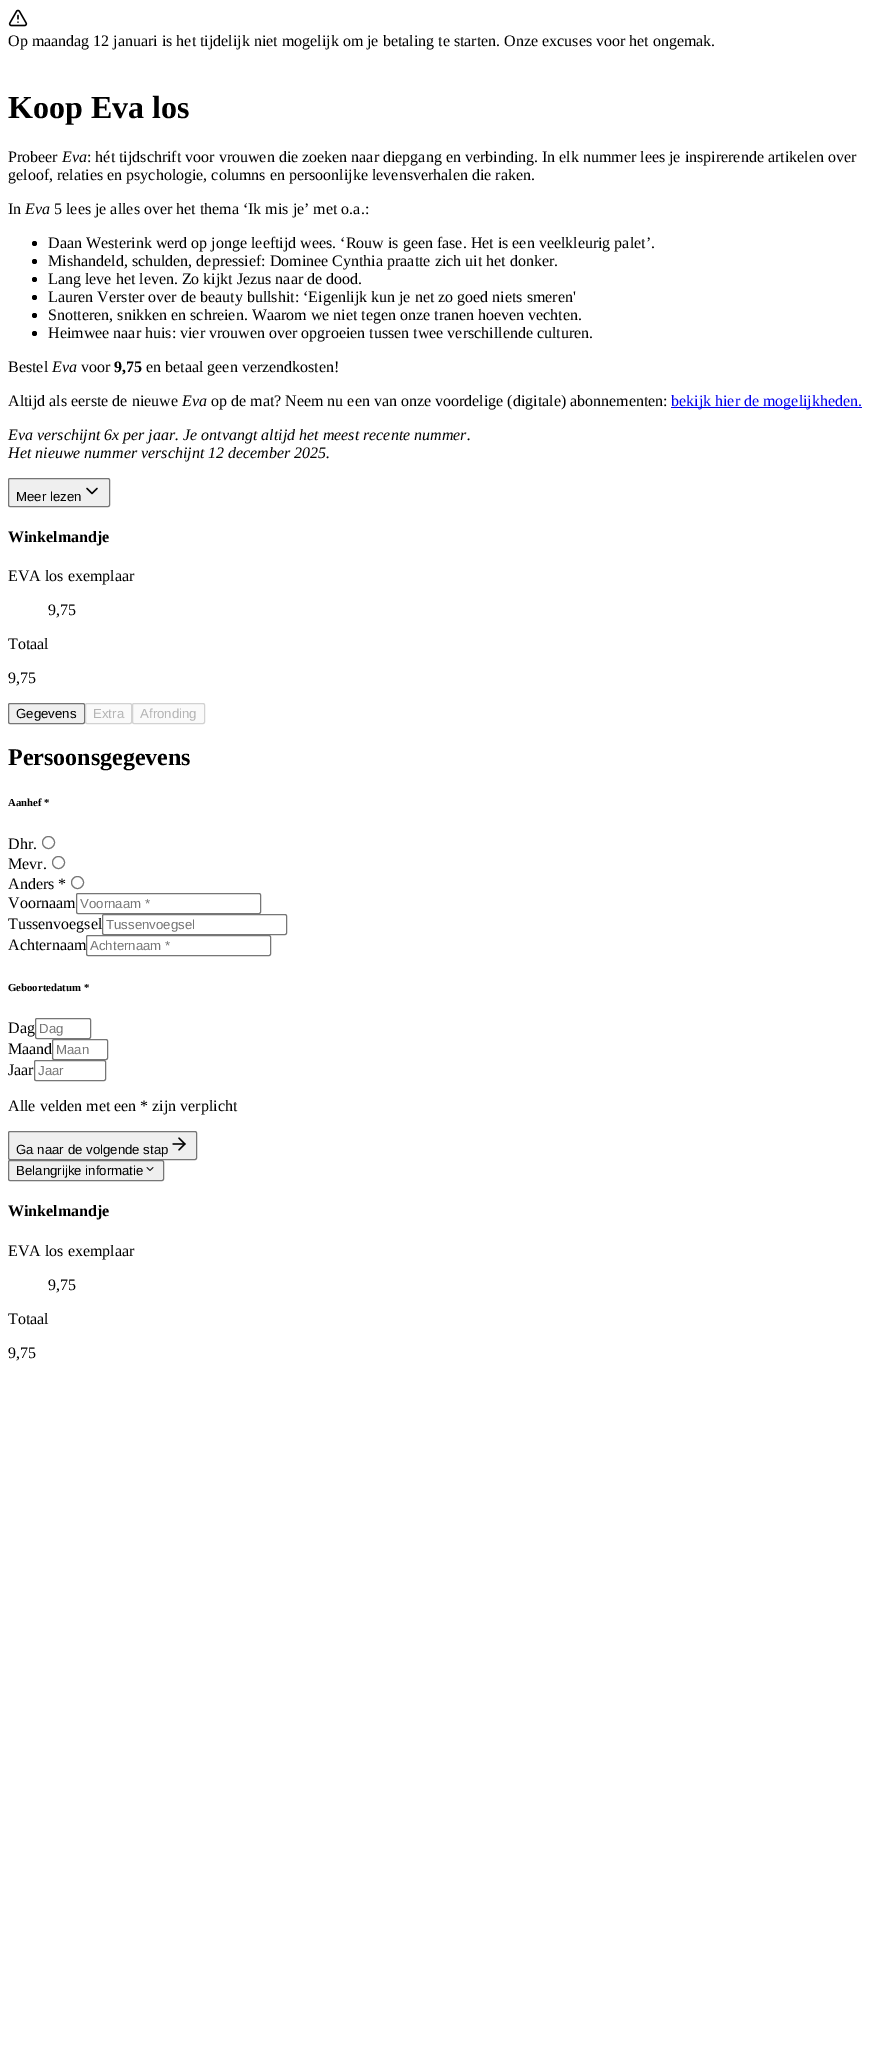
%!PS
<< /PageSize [878 2053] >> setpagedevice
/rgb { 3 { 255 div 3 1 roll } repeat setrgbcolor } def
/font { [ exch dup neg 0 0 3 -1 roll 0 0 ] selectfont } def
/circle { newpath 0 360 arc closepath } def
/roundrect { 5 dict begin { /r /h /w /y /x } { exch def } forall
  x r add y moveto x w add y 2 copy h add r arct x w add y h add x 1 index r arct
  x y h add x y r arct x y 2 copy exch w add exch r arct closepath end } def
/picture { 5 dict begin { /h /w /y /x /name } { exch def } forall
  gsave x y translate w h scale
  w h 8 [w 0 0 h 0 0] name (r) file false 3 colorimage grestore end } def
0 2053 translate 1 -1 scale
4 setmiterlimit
255 255 255 rgb
0 0 878 2053 rectfill
(img/1.rgb) 8 9 20 18 picture
0 0 0 rgb
34.5 243.5 2.5 circle fill
34.5 261.5 2.5 circle fill
34.5 279.5 2.5 circle fill
34.5 297.5 2.5 circle fill
34.5 315.5 2.5 circle fill
34.5 333.5 2.5 circle fill
0 0 238 rgb
671 407 191 1 rectfill
239 239 239 rgb
8.5 478.5 101 28 1.5 roundrect gsave fill grestore
118 118 118 rgb
stroke
(img/2.rgb) 86 487 12 8 picture
239 239 239 rgb
8.5 703.5 76 20 1.5 roundrect gsave fill grestore
118 118 118 rgb
stroke
250 250 250 rgb
85.5 703.5 46 20 1.5 roundrect gsave fill grestore
210 210 210 rgb
stroke
250 250 250 rgb
132.5 703.5 72 20 1.5 roundrect gsave fill grestore
210 210 210 rgb
stroke
118 118 118 rgb
48.5 842.5 6 circle stroke
58.5 862.5 6 circle stroke
77.5 882.5 6 circle stroke
76.5 893.5 184 20 1.5 roundrect stroke
102.5 914.5 184 20 1.5 roundrect stroke
86.5 935.5 184 20 1.5 roundrect stroke
35.5 1018.5 55 20 1.5 roundrect stroke
34.5 1060.5 71 20 1.5 roundrect stroke
239 239 239 rgb
8.5 1131.5 188 28 1.5 roundrect gsave fill grestore
118 118 118 rgb
stroke
(img/3.rgb) 172 1137 14 14 picture
239 239 239 rgb
8.5 1160.5 155 20 1.5 roundrect gsave fill grestore
118 118 118 rgb
stroke
(img/4.rgb) 146 1167 8 4 picture
/LiberationSerif-Regular 16 font
0 0 0 rgb
8 46 moveto (Op maandag 12 januari is het tijdelijk niet mogelijk om je betaling te starten. Onze excuses voor het ongemak.) show
/LiberationSerif-Bold 32 font
8 118 moveto (Koop Eva los) show
/LiberationSerif-Regular 16 font
8 162 moveto (Probeer) show
/LiberationSerif-Italic 16 font
62 162 moveto (Eva) show
/LiberationSerif-Regular 16 font
[
  [(: hét tijdschrift voor vrouwen die zoeken naar diepgang en verbinding. In elk nummer lees je inspirerende artikelen over) 87 162]
  [(geloof, relaties en psychologie, columns en persoonlijke levensverhalen die raken.) 8 180]
  [(In) 8 214]
] { aload pop moveto show } forall
/LiberationSerif-Italic 16 font
25 214 moveto (Eva) show
/LiberationSerif-Regular 16 font
[
  [(5 lees je alles over het thema ‘Ik mis je’ met o.a.:) 54 214]
  [(Daan Westerink werd op jonge leeftijd wees. ‘Rouw is geen fase. Het is een veelkleurig palet’.) 48 248]
  [(Mishandeld, schulden, depressief: Dominee Cynthia praatte zich uit het donker.) 48 266]
  [(Lang leve het leven. Zo kijkt Jezus naar de dood.) 48 284]
  [(Lauren Verster over de beauty bullshit: ‘Eigenlijk kun je net zo goed niets smeren') 48 302]
  [(Snotteren, snikken en schreien. Waarom we niet tegen onze tranen hoeven vechten.) 48 320]
  [(Heimwee naar huis: vier vrouwen over opgroeien tussen twee verschillende culturen.) 48 338]
  [(Bestel) 8 372]
] { aload pop moveto show } forall
/LiberationSerif-Italic 16 font
52 372 moveto (Eva) show
/LiberationSerif-Regular 16 font
81 372 moveto (voor) show
/LiberationSerif-Bold 16 font
114 372 moveto (9,75) show
/LiberationSerif-Regular 16 font
146 372 moveto (en betaal geen verzendkosten!) show
8 406 moveto (Altijd als eerste de nieuwe) show
/LiberationSerif-Italic 16 font
182 406 moveto (Eva) show
/LiberationSerif-Regular 16 font
211 406 moveto (op de mat? Neem nu een van onze voordelige \(digitale\) abonnementen:) show
0 0 238 rgb
671 406 moveto (bekijk hier de mogelijkheden.) show
/LiberationSerif-Italic 16 font
0 0 0 rgb
8 440 moveto (Eva verschijnt 6x per jaar. Je ontvangt altijd het meest recente nummer.) show
8 458 moveto (Het nieuwe nummer verschijnt 12 december 2025.) show
/LiberationSans-Regular 13.25 font
16 501 moveto (Meer lezen) show
/LiberationSerif-Bold 16 font
8 542 moveto (Winkelmandje) show
/LiberationSerif-Regular 16 font
[
  [(EVA los exemplaar) 8 581]
  [(9,75) 48 615]
  [(Totaal) 8 649]
  [(9,75) 8 683]
] { aload pop moveto show } forall
/LiberationSans-Regular 13.25 font
16 718 moveto (Gegevens) show
180 180 180 rgb
93 718 moveto (Extra) show
140 718 moveto (Afronding) show
/LiberationSerif-Bold 24 font
0 0 0 rgb
8 765 moveto (Persoonsgegevens) show
/LiberationSerif-Bold 10.75 font
8 806 moveto (Aanhef *) show
/LiberationSerif-Regular 16 font
[
  [(Dhr.) 8 849]
  [(Mevr.) 8 869]
  [(Anders *) 8 889]
  [(Voornaam) 8 908]
] { aload pop moveto show } forall
/LiberationSans-Regular 13.25 font
117 117 117 rgb
80 908 moveto (Voornaam *) show
/LiberationSerif-Regular 16 font
0 0 0 rgb
8 929 moveto (Tussenvoegsel) show
/LiberationSans-Regular 13.25 font
117 117 117 rgb
106 929 moveto (Tussenvoegsel) show
/LiberationSerif-Regular 16 font
0 0 0 rgb
8 950 moveto (Achternaam) show
/LiberationSans-Regular 13.25 font
117 117 117 rgb
90 950 moveto (Achternaam *) show
/LiberationSerif-Bold 10.75 font
0 0 0 rgb
8 991 moveto (Geboortedatum *) show
/LiberationSerif-Regular 16 font
8 1033 moveto (Dag) show
/LiberationSans-Regular 13.25 font
117 117 117 rgb
39 1033 moveto (Dag) show
/LiberationSerif-Regular 16 font
0 0 0 rgb
8 1054 moveto (Maand) show
255 255 255 rgb
52.5 1039.5 55 20 1.5 roundrect gsave fill grestore
118 118 118 rgb
stroke
/LiberationSans-Regular 13.25 font
117 117 117 rgb
56 1054 moveto (Maan) show
/LiberationSerif-Regular 16 font
0 0 0 rgb
8 1075 moveto (Jaar) show
/LiberationSans-Regular 13.25 font
117 117 117 rgb
38 1075 moveto (Jaar) show
/LiberationSerif-Regular 16 font
0 0 0 rgb
8 1111 moveto (Alle velden met een * zijn verplicht) show
/LiberationSans-Regular 13.25 font
16 1154 moveto (Ga naar de volgende stap) show
16 1175 moveto (Belangrijke informatie) show
/LiberationSerif-Bold 16 font
8 1216 moveto (Winkelmandje) show
/LiberationSerif-Regular 16 font
[
  [(EVA los exemplaar) 8 1256]
  [(9,75) 48 1290]
  [(Totaal) 8 1324]
  [(9,75) 8 1358]
] { aload pop moveto show } forall
showpage
